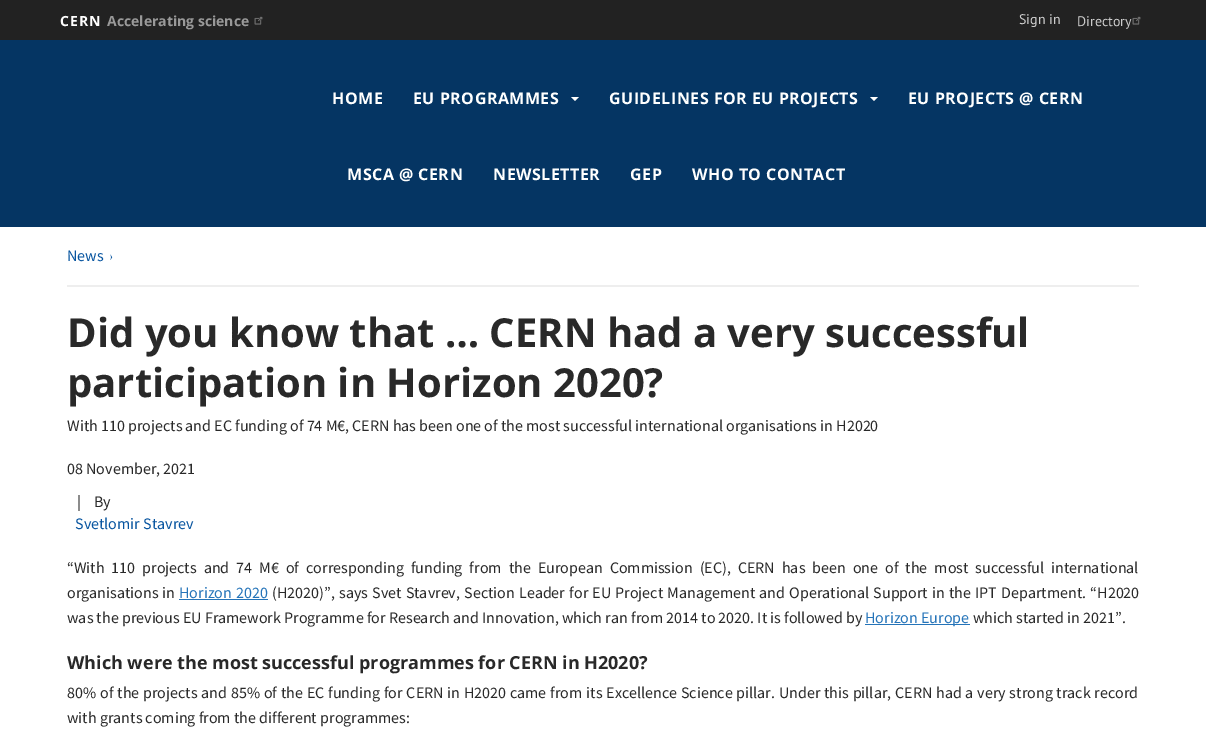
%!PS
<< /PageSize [1206 744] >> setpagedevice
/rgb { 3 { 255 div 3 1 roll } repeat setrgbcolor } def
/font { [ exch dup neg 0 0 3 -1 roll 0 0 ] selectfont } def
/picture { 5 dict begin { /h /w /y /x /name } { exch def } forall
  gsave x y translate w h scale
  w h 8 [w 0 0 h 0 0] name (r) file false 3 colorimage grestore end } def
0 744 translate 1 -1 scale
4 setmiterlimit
255 255 255 rgb
0 0 1206 744 rectfill
34 34 34 rgb
0 0 1206 40 rectfill
(img/1.rgb) 254 16 9 9 picture
(img/1.rgb) 1132 16 9 9 picture
5 53 99 rgb
0 40 1206 187 rectfill
255 255 254 rgb
571 97 moveto 579 97 lineto 575 101 lineto closepath fill
870 97 moveto 878 97 lineto 874 101 lineto closepath fill
(img/2.rgb) 110 254 3 6 picture
[
  [67 285 1072 2 238 238 238]
  [179 599 89 1 37 116 185]
  [865 624 105 1 37 116 185]
] { aload pop rgb rectfill } forall
/OpenSans-Bold 14 font
255 255 255 rgb
60 26 moveto 1 0 (CERN) ashow
153 153 153 rgb
107 26 moveto (Accelerating science) show
/PTSans-Regular 14 font
204 204 204 rgb
1019 24 moveto (Sign in) show
1077 26 moveto (Directory) show
/OpenSans-Bold 16 font
255 255 255 rgb
332 104 moveto 0.5 0 (HOME) ashow
413 104 moveto 0.5 0 (EU PROGRAMMES) ashow
609 104 moveto 0.5 0 (GUIDELINES FOR EU PROJECTS) ashow
908 104 moveto 0.5 0 (EU PROJECTS @ CERN) ashow
347 180 moveto 0.5 0 (MSCA @ CERN) ashow
493 180 moveto 0.5 0 (NEWSLETTER) ashow
630 180 moveto 0.5 0 (GEP) ashow
692 180 moveto 0.5 0 (WHO TO CONTACT) ashow
/SourceSansPro-Regular 16 font
8 85 160 rgb
67 261 moveto (News) show
/OpenSans-Bold 40 font
41 41 41 rgb
67 347 moveto (Did you know that … CERN had a very successful) show
67 397 moveto (participation in Horizon 2020?) show
/SourceSansPro-Regular 16 font
[
  [(With 110 projects and EC funding of 74 M€, CERN has been one of the most successful international organisations in H2020) 67 431]
  [(08 November, 2021) 67 474]
  [(|) 77 507]
  [(By) 94 507]
] { aload pop moveto show } forall
8 85 160 rgb
75 529 moveto (Svetlomir Stavrev) show
41 41 41 rgb
67 573 moveto 3.8 0 32 (“With 110 projects and 74 M€ of corresponding funding from the European Commission \(EC\), CERN has been one of the most successful international) widthshow
67 598 moveto 1 0 32 (organisations in) widthshow
37 116 185 rgb
179 598 moveto 1 0 32 (Horizon 2020) widthshow
41 41 41 rgb
272 598 moveto 1 0 32 (\(H2020\)”, says Svet Stavrev, Section Leader for EU Project Management and Operational Support in the IPT Department. “H2020) widthshow
67 623 moveto (was the previous EU Framework Programme for Research and Innovation, which ran from 2014 to 2020. It is followed by) show
37 116 185 rgb
865 623 moveto (Horizon Europe) show
41 41 41 rgb
973 623 moveto (which started in 2021”.) show
/OpenSans-Bold 18 font
67 669 moveto (Which were the most successful programmes for CERN in H2020?) show
/SourceSansPro-Regular 16 font
67 698 moveto 0.65 0 32 (80% of the projects and 85% of the EC funding for CERN in H2020 came from its Excellence Science pillar. Under this pillar, CERN had a very strong track record) widthshow
67 723 moveto (with grants coming from the different programmes:) show
showpage
